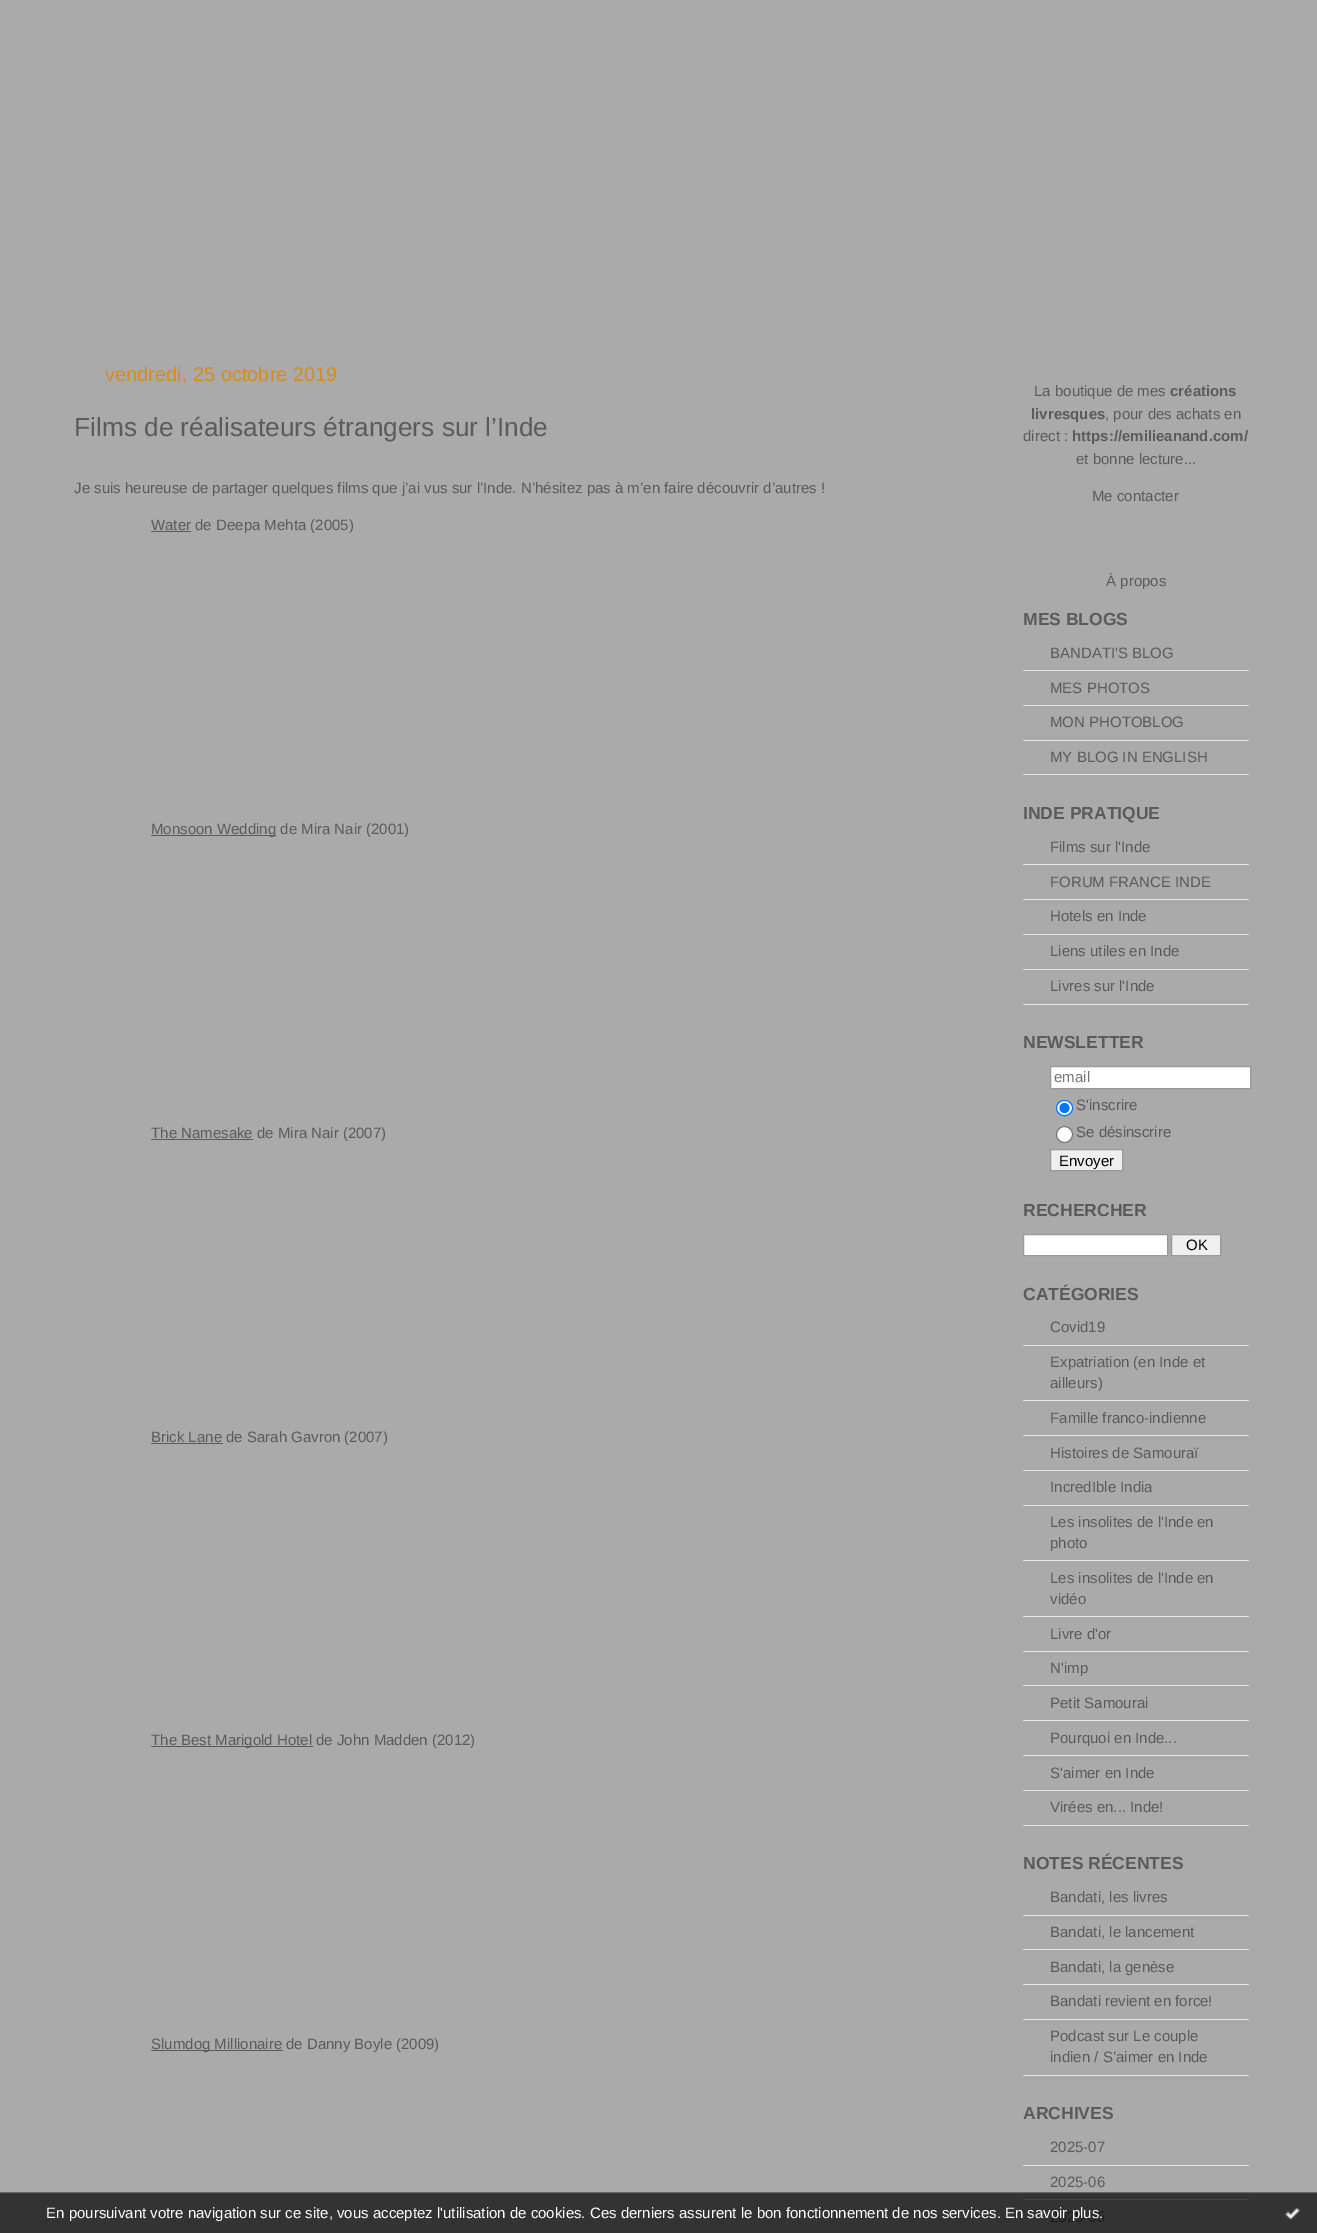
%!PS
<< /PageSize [1317 2233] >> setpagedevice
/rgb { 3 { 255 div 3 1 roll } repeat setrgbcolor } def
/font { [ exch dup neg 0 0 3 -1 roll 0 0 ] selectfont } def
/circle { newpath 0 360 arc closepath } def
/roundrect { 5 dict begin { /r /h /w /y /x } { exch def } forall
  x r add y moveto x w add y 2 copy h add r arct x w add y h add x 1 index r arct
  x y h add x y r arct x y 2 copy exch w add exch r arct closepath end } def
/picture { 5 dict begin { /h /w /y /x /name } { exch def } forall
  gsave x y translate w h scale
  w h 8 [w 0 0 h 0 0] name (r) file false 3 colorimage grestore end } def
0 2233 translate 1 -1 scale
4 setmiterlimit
170 170 170 rgb
0 0 1317 2233 rectfill
[
  [151 531 40 1 91 91 91]
  [151 835 125 1 91 91 91]
  [151 1139 102 1 91 91 91]
  [151 1443 72 1 91 91 91]
  [151 1746 162 1 91 91 91]
  [151 2050 132 1 91 91 91]
  [1023 670 226 1 230 230 227]
  [1023 705 226 1 230 230 227]
  [1023 740 226 1 230 230 227]
  [1023 774 226 1 230 230 227]
  [1023 864 226 1 230 230 227]
  [1023 899 226 1 230 230 227]
  [1023 934 226 1 230 230 227]
  [1023 969 226 1 230 230 227]
  [1023 1004 226 1 230 230 227]
] { aload pop rgb rectfill } forall
255 255 255 rgb
1050.5 1066.5 moveto 1250.5 1066.5 lineto 1250.5 1088.5 lineto 1050.5 1088.5 lineto closepath gsave fill grestore
153 153 153 rgb
stroke
255 255 255 rgb
1056.5 1100.5 16 15 7.5 roundrect gsave fill grestore
0 117 255 rgb
stroke
1064.5 1108 5 circle fill
255 255 255 rgb
1064.5 1134.5 8 circle gsave fill grestore
118 118 118 rgb
stroke
239 239 239 rgb
1050.5 1149.5 moveto 1122.5 1149.5 lineto 1122.5 1170.5 lineto 1050.5 1170.5 lineto closepath gsave fill grestore
153 153 153 rgb
stroke
255 255 255 rgb
1023.5 1234.5 moveto 1167.5 1234.5 lineto 1167.5 1255.5 lineto 1023.5 1255.5 lineto closepath gsave fill grestore
153 153 153 rgb
stroke
239 239 239 rgb
1171.5 1234.5 moveto 1220.5 1234.5 lineto 1220.5 1255.5 lineto 1171.5 1255.5 lineto closepath gsave fill grestore
153 153 153 rgb
stroke
[
  [1023 1345 226 1 230 230 227]
  [1023 1400 226 1 230 230 227]
  [1023 1435 226 1 230 230 227]
  [1023 1470 226 1 230 230 227]
  [1023 1505 226 1 230 230 227]
  [1023 1560 226 1 230 230 227]
  [1023 1616 226 1 230 230 227]
  [1023 1651 226 1 230 230 227]
  [1023 1685 226 1 230 230 227]
  [1023 1720 226 1 230 230 227]
  [1023 1755 226 1 230 230 227]
  [1023 1790 226 1 230 230 227]
  [1023 1825 226 1 230 230 227]
  [1023 1915 226 1 230 230 227]
  [1023 1949 226 1 230 230 227]
  [1023 1984 226 1 230 230 227]
  [1023 2019 226 1 230 230 227]
  [1023 2075 226 1 230 230 227]
  [1023 2165 226 1 230 230 227]
] { aload pop rgb rectfill } forall
(img/1.rgb) 0 2192 1317 41 picture
(img/2.rgb) 1284 2207 17 13 picture
/LiberationSans-Regular 20 font
214 140 29 rgb
105 381 moveto (vendredi, 25 octobre 2019) show
/LiberationSans-Regular 26.25 font
91 91 91 rgb
74 436 moveto (Films de réalisateurs étrangers sur l’Inde) show
/LiberationSans-Regular 15 font
[
  [(Je suis heureuse de partager quelques films que j’ai vus sur l’Inde. N’hésitez pas à m’en faire découvrir d’autres !) 74 493]
  [(Water de Deepa Mehta \(2005\)) 151 530]
  [(Monsoon Wedding de Mira Nair \(2001\)) 151 834]
  [(The Namesake de Mira Nair \(2007\)) 151 1138]
  [(Brick Lane de Sarah Gavron \(2007\)) 151 1442]
  [(The Best Marigold Hotel de John Madden \(2012\)) 151 1745]
  [(Slumdog Millionaire de Danny Boyle \(2009\)) 151 2049]
  [(La boutique de mes) 1034 396]
] { aload pop moveto show } forall
/LiberationSans-Bold 15 font
1170 396 moveto (créations) show
1031 419 moveto (livresques) show
/LiberationSans-Regular 15 font
1105 419 moveto (, pour des achats en) show
1023 441 moveto (direct :) show
/LiberationSans-Bold 15 font
1072 441 moveto (https://emilieanand.com/) show
/LiberationSans-Regular 15 font
[
  [(et bonne lecture...) 1076 464]
  [(Me contacter) 1092 501]
  [(À propos) 1106 586]
] { aload pop moveto show } forall
/LiberationSans-Bold 17.5 font
1023 625 moveto (MES BLOGS) show
/LiberationSans-Regular 15 font
[
  [(BANDATI'S BLOG) 1050 658]
  [(MES PHOTOS) 1050 693]
  [(MON PHOTOBLOG) 1050 727]
  [(MY BLOG IN ENGLISH) 1050 762]
] { aload pop moveto show } forall
/LiberationSans-Bold 17.5 font
1023 819 moveto (INDE PRATIQUE) show
/LiberationSans-Regular 15 font
[
  [(Films sur l'Inde) 1050 852]
  [(FORUM FRANCE INDE) 1050 887]
  [(Hotels en Inde) 1050 921]
  [(Liens utiles en Inde) 1050 956]
  [(Livres sur l'Inde) 1050 991]
] { aload pop moveto show } forall
/LiberationSans-Bold 17.5 font
1023 1048 moveto (NEWSLETTER) show
/LiberationSans-Regular 15 font
117 117 117 rgb
1054 1082 moveto (email) show
91 91 91 rgb
1076 1110 moveto (S'inscrire) show
1076 1137 moveto (Se désinscrire) show
0 0 0 rgb
1059 1166 moveto (Envoyer) show
/LiberationSans-Bold 17.5 font
91 91 91 rgb
1023 1216 moveto (RECHERCHER) show
/LiberationSans-Regular 15 font
0 0 0 rgb
1186 1250 moveto (OK) show
/LiberationSans-Bold 17.5 font
91 91 91 rgb
1023 1300 moveto (CATÉGORIES) show
/LiberationSans-Regular 15 font
[
  [(Covid19) 1050 1332]
  [(Expatriation \(en Inde et) 1050 1367]
  [(ailleurs\)) 1050 1388]
  [(Famille franco-indienne) 1050 1423]
  [(Histoires de Samouraï) 1050 1458]
  [(IncredIble India) 1050 1492]
  [(Les insolites de l'Inde en) 1050 1527]
  [(photo) 1050 1548]
  [(Les insolites de l'Inde en) 1050 1583]
  [(vidéo) 1050 1604]
  [(Livre d'or) 1050 1639]
  [(N'imp) 1050 1673]
  [(Petit Samourai) 1050 1708]
  [(Pourquoi en Inde...) 1050 1743]
  [(S'aimer en Inde) 1050 1778]
  [(Virées en... Inde!) 1050 1812]
] { aload pop moveto show } forall
/LiberationSans-Bold 17.5 font
1023 1869 moveto (NOTES RÉCENTES) show
/LiberationSans-Regular 15 font
[
  [(Bandati, les livres) 1050 1902]
  [(Bandati, le lancement) 1050 1937]
  [(Bandati, la genèse) 1050 1972]
  [(Bandati revient en force!) 1050 2006]
  [(Podcast sur Le couple) 1050 2041]
  [(indien / S’aimer en Inde) 1050 2062]
] { aload pop moveto show } forall
/LiberationSans-Bold 17.5 font
1023 2119 moveto (ARCHIVES) show
/LiberationSans-Regular 15 font
1050 2152 moveto (2025-07) show
1050 2187 moveto (2025-06) show
255 255 255 rgb
46 2218 moveto (En poursuivant votre navigation sur ce site, vous acceptez l'utilisation de cookies. Ces derniers assurent le bon fonctionnement de nos services. En savoir plus.) show
showpage
